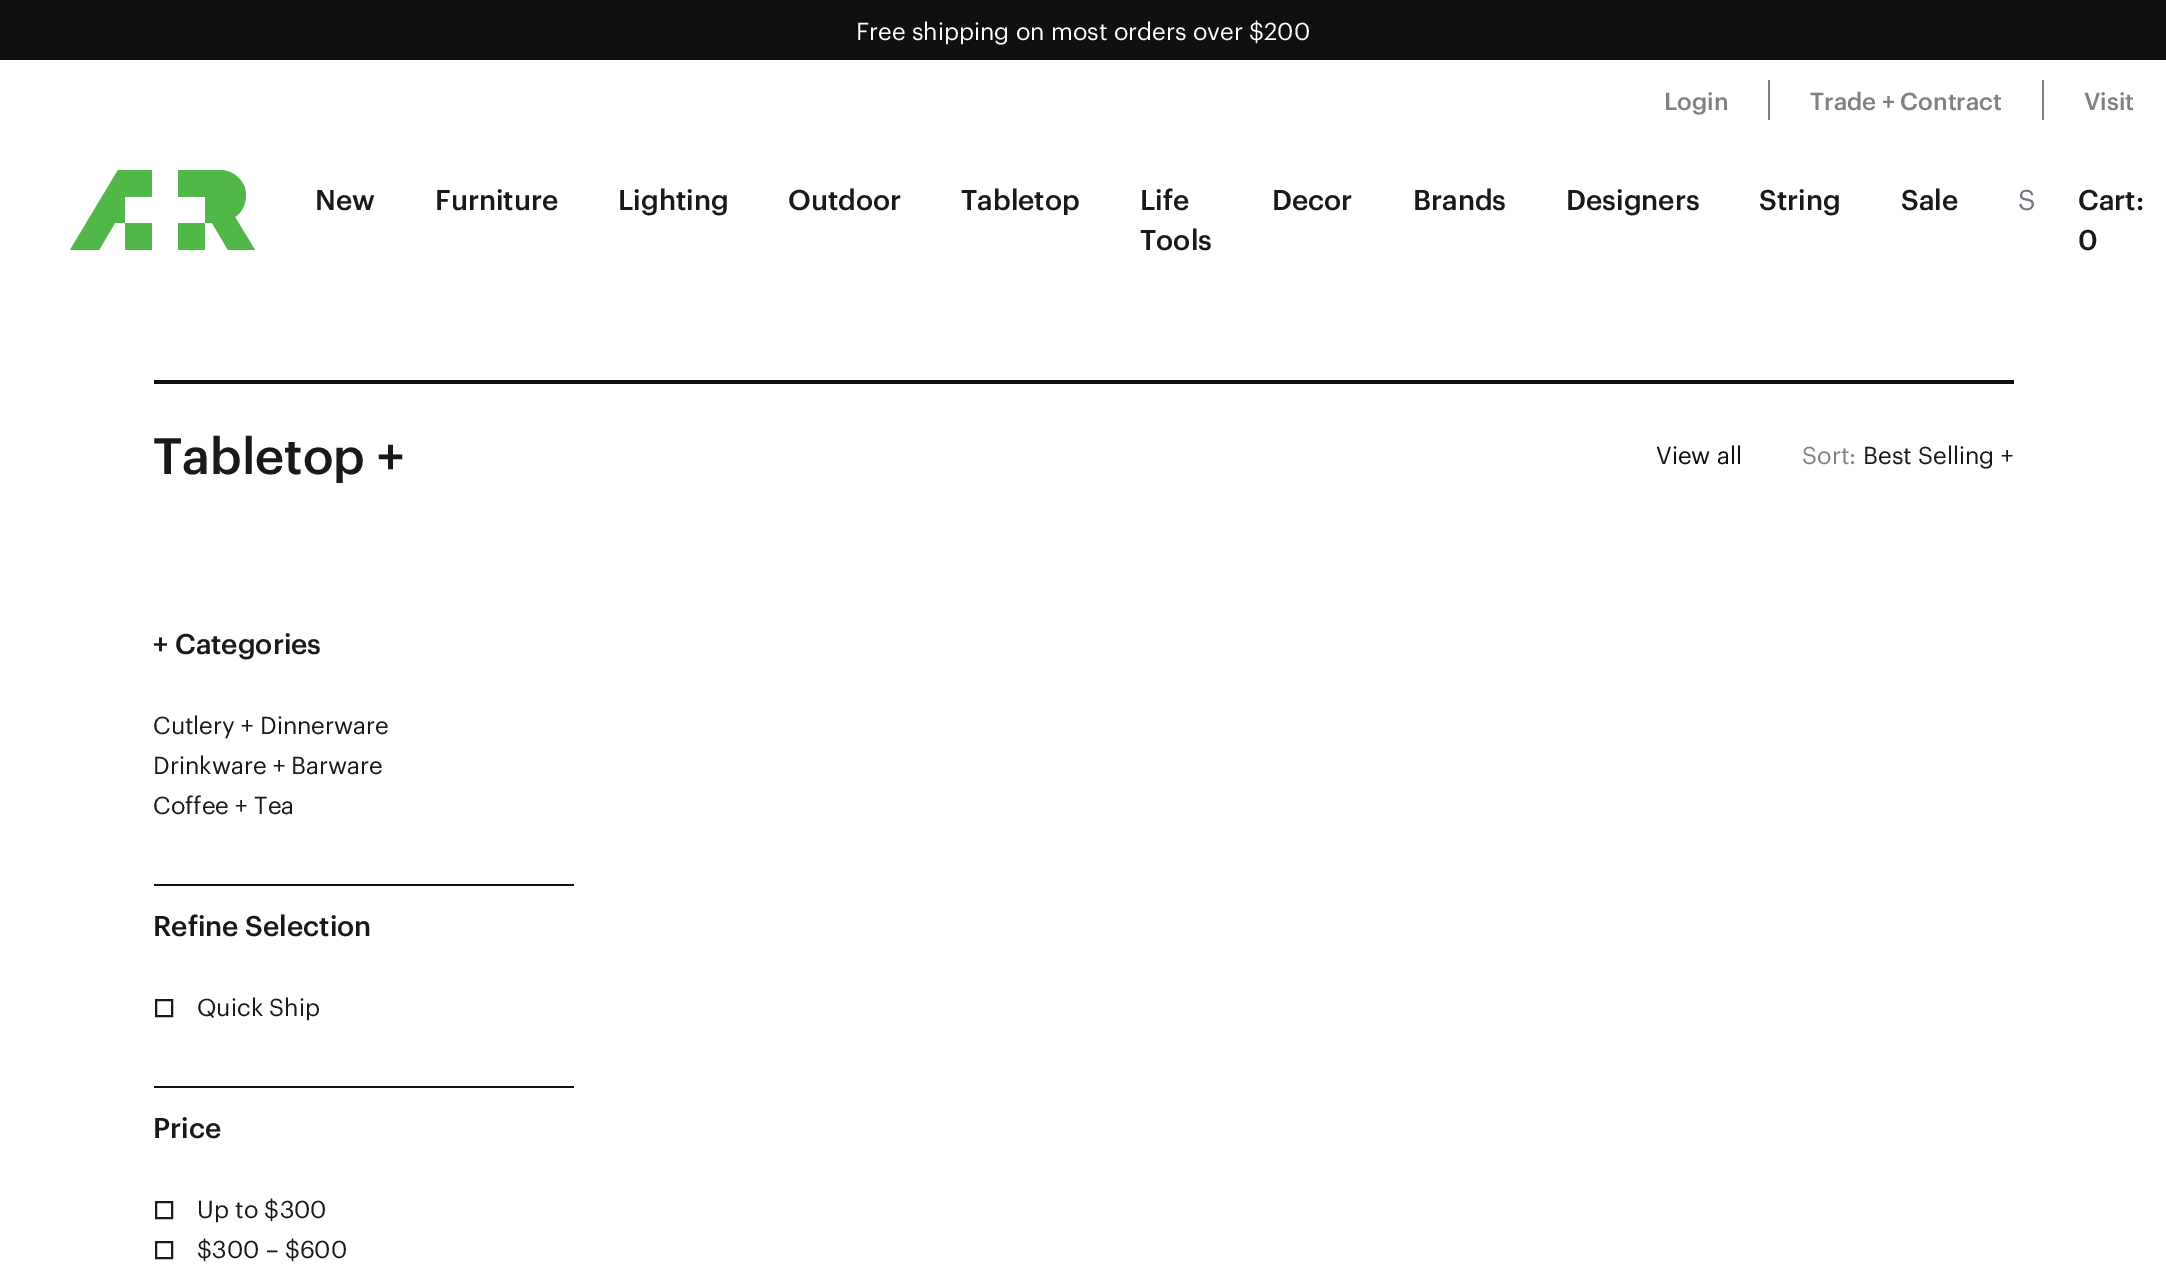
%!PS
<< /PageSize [2166 1275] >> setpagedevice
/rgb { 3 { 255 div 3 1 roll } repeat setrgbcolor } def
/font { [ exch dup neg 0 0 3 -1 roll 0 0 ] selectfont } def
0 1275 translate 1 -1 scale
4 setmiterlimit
255 255 255 rgb
0 0 2166 1275 rectfill
16 16 16 rgb
0 0 2166 60 rectfill
80 183 72 rgb
125 250 moveto 125 223 lineto 152 223 lineto 152 250 lineto closepath 178 250 moveto 205 250 lineto 205 223 lineto 178 223 lineto closepath 118 170 moveto 70 250 lineto 99 250 lineto 115 223 lineto 125 223 lineto 125 197 lineto 152 197 lineto 152 170 lineto closepath 235 217 moveto 244 211 248 199 245 188 curveto 241 177 231 170 220 170 curveto 178 170 lineto 178 197 lineto 205 197 lineto 205 223 lineto 212 223 lineto 228 250 lineto 255 250 lineto closepath fill
[
  [2042 80 2 40 128 128 128]
  [1768 80 2 40 128 128 128]
  [154 380 1860 4 16 16 16]
  [154 884 420 2 16 16 16]
] { aload pop rgb rectfill } forall
26 26 26 rgb
2 setlinewidth
156 1000 16 16 rectstroke
16 16 16 rgb
154 1086 420 2 rectfill
26 26 26 rgb
156 1202 16 16 rectstroke
156 1242 16 16 rectstroke
/Graphik-Regular 24 font
255 255 255 rgb
856 40 moveto (Free shipping on most orders over $200) show
/Graphik-Medium 24 font
128 128 128 rgb
[
  [(Login) 1664 110]
  [(Trade + Contract) 1810 110]
  [(Visit) 2084 110]
] { aload pop moveto show } forall
/Graphik-Medium 28 font
25 25 25 rgb
[
  [(New) 315 210]
  [(Furniture) 435 210]
  [(Lighting) 618 210]
  [(Outdoor) 788 210]
  [(Tabletop) 961 210]
  [(Life) 1140 210]
  [(Tools) 1140 250]
  [(Decor) 1272 210]
  [(Brands) 1413 210]
  [(Designers) 1566 210]
  [(String) 1759 210]
  [(Sale) 1901 210]
] { aload pop moveto show } forall
/Graphik-Regular 28 font
108 117 125 rgb
2018 210 moveto (S) show
/Graphik-Medium 28 font
25 25 25 rgb
2078 210 moveto (Cart:) show
2078 250 moveto (0) show
/Graphik-Medium 50 font
153 474 moveto (Tabletop +) show
/Graphik-Regular 24 font
16 16 16 rgb
1656 464 moveto (View all) show
128 128 128 rgb
1802 464 moveto (Sort:) show
25 25 25 rgb
1863 464 moveto (Best Selling +) show
/Graphik-Medium 28 font
153 654 moveto (+ Categories) show
/Graphik-Regular 24 font
[
  [(Cutlery + Dinnerware) 153 734]
  [(Drinkware + Barware) 153 774]
  [(Coffee + Tea) 153 814]
] { aload pop moveto show } forall
/Graphik-Medium 28 font
153 936 moveto (Refine Selection) show
/Graphik-Regular 24 font
197 1016 moveto (Quick Ship) show
/Graphik-Medium 28 font
153 1138 moveto (Price) show
/Graphik-Regular 24 font
197 1218 moveto (Up to $300) show
197 1258 moveto ($300 – $600) show
showpage
